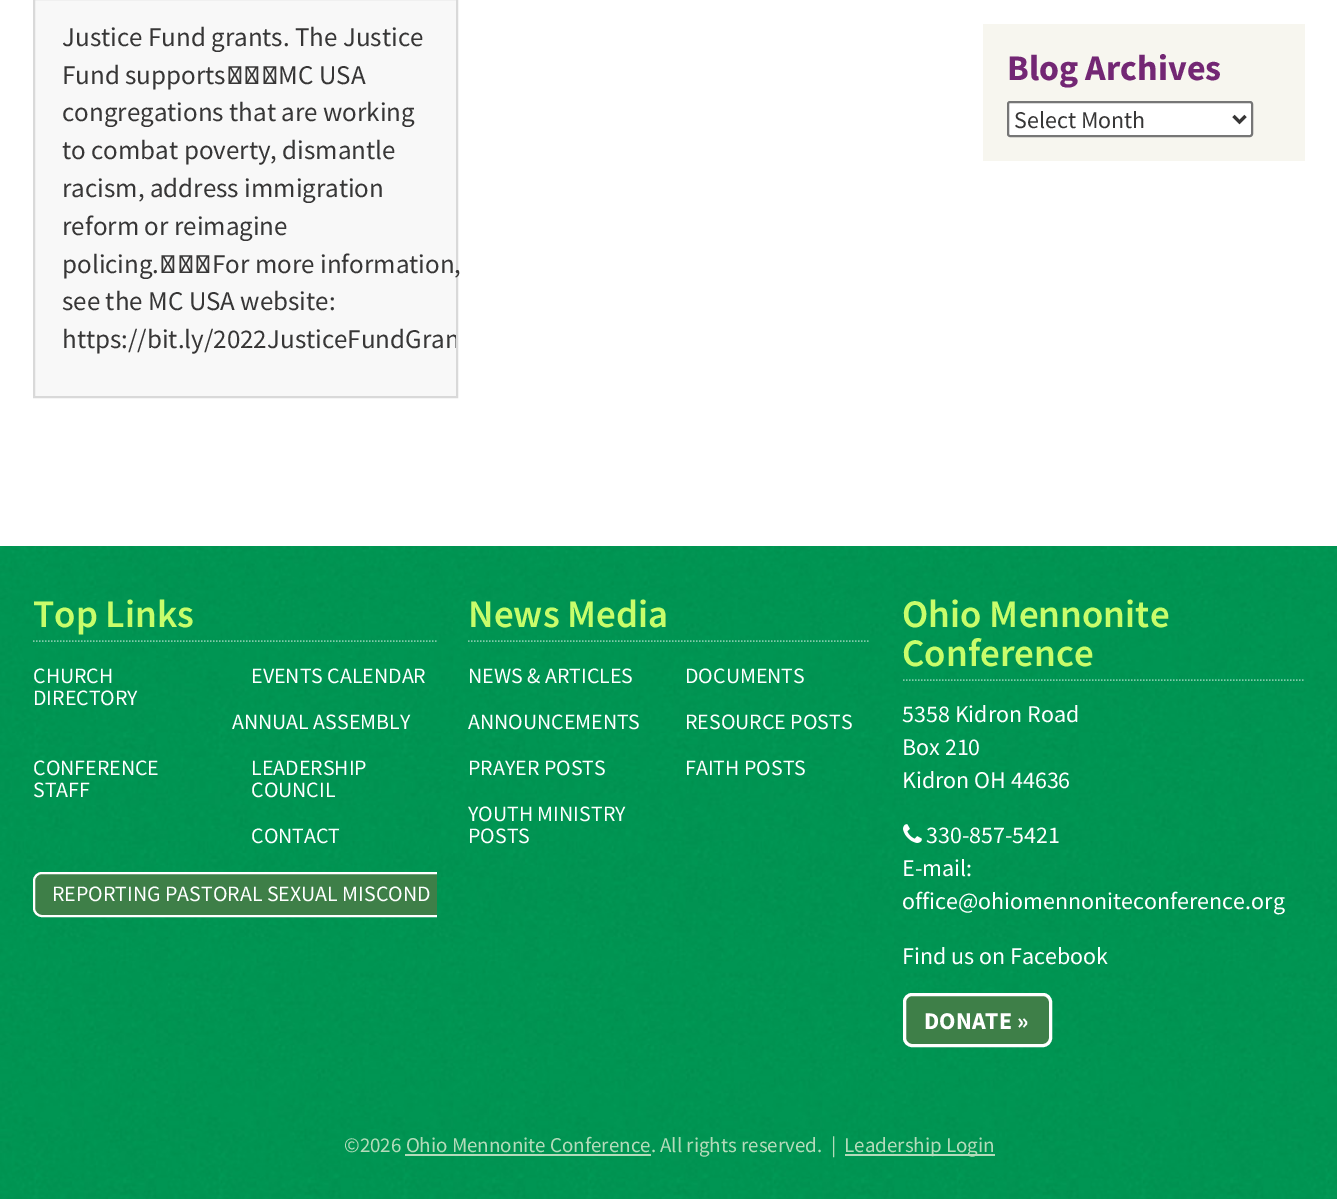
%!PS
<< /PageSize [1337 1199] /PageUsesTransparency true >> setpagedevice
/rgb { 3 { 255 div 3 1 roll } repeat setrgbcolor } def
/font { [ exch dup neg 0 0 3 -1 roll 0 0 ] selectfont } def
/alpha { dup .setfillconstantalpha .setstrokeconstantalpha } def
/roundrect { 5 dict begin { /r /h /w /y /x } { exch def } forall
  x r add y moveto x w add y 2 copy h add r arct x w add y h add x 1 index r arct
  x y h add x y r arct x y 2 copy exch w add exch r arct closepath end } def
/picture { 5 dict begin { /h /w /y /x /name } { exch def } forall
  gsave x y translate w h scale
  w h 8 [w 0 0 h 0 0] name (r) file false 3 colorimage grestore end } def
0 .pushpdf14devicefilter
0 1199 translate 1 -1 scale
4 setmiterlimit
255 255 255 rgb
0 0 1337 1199 rectfill
(img/1.rgb) 0 546 1337 653 picture
248 248 248 rgb
34 -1 moveto 457 -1 lineto 457 397 lineto 34 397 lineto closepath gsave fill grestore
217 217 217 rgb
2 setlinewidth
stroke
247 246 239 rgb
983 24 322 137 rectfill
255 255 255 rgb
1008 102 244 34 2 roundrect gsave fill grestore
118 118 118 rgb
stroke
55 54 54 rgb
3 setlinewidth
1233.5 116 moveto 1239.5 122 lineto 1245.5 116 lineto stroke
0.5 alpha
255 255 255 rgb
1.5 setlinewidth
[1.5 1.5] 0 setdash
33 641 moveto 436.5 641 lineto stroke
1 alpha
62 127 72 rgb
42 872 moveto 437 872 lineto 437 917 lineto 42 917 lineto 37 917 33 913 33 908 curveto 33 881 lineto 33 876 37 872 42 872 curveto closepath fill
gsave
33 659 404 288 rectclip
255 255 255 rgb
2 setlinewidth
[] 0 setdash
34 873 453 43 8 roundrect stroke
grestore
0.5 alpha
255 255 255 rgb
468 641 moveto 870 641 lineto stroke
903 680 moveto 1305 680 lineto stroke
1 alpha
(img/2.rgb) 903 824 19 19 picture
62 127 72 rgb
904.5 994.5 146 51 7.5 roundrect gsave fill grestore
255 255 255 rgb
3 setlinewidth
[] 0 setdash
stroke
180 219 186 rgb
845 1154 150 2 rectfill
405 1154 246 2 rectfill
/SourceSansPro-Regular 27 font
55 54 54 rgb
[
  [(Justice Fund grants. The Justice) 62 46]
  [(Fund supports MC USA) 62 84]
  [(congregations that are working) 62 121]
  [(to combat poverty, dismantle) 62 159]
  [(racism, address immigration) 62 197]
  [(reform or reimagine) 62 235]
  [(policing. For more information,) 62 273]
  [(see the MC USA website:) 62 310]
] { aload pop moveto show } forall
gsave
35 0 421 396 rectclip
62 348 moveto (https://bit.ly/2022JusticeFundGran) show
grestore
/SourceSansPro-Bold 36 font
115 39 116 rgb
1007 80 moveto (Blog Archives) show
/SourceSansPro-Regular 24 font
55 54 54 rgb
1014 128 moveto (Select Month) show
/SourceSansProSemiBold-SemiBold 39 font
200 253 107 rgb
33 627 moveto (Top Links) show
/SourceSansPro-Regular 21.9 font
255 255 255 rgb
[
  [(CHURCH) 33 683]
  [(DIRECTORY) 33 705]
  [(EVENTS CALENDAR) 251 683]
  [(ANNUAL ASSEMBLY) 232 729]
  [(CONFERENCE) 33 775]
  [(STAFF) 33 797]
  [(LEADERSHIP) 251 775]
  [(COUNCIL) 251 797]
  [(CONTACT) 251 843]
  [(REPORTING PASTORAL SEXUAL MISCOND) 52 901]
] { aload pop moveto show } forall
/SourceSansProSemiBold-SemiBold 39 font
200 253 107 rgb
468 627 moveto (News Media) show
/SourceSansPro-Regular 21.9 font
255 255 255 rgb
[
  [(NEWS & ARTICLES) 468 683]
  [(DOCUMENTS) 685 683]
  [(ANNOUNCEMENTS) 468 729]
  [(RESOURCE POSTS) 685 729]
  [(PRAYER POSTS) 468 775]
  [(FAITH POSTS) 685 775]
  [(YOUTH MINISTRY) 468 821]
  [(POSTS) 468 843]
] { aload pop moveto show } forall
/SourceSansProSemiBold-SemiBold 39 font
200 253 107 rgb
902 627 moveto (Ohio Mennonite) show
902 666 moveto (Conference) show
/SourceSansPro-Regular 24 font
255 255 255 rgb
[
  [(5358 Kidron Road) 902 722]
  [(Box 210) 902 755]
  [(Kidron OH 44636) 902 788]
  [(330-857-5421) 926 843]
  [(E-mail:) 902 876]
  [(office@ohiomennoniteconference.org) 902 909]
  [(Find us on Facebook) 902 964]
] { aload pop moveto show } forall
/SourceSansPro-Bold 24 font
924 1029 moveto (DONATE ») show
/SourceSansPro-Regular 21 font
180 219 186 rgb
344 1152 moveto (©2026 Ohio Mennonite Conference. All rights reserved.  |) show
844 1152 moveto (Leadership Login) show
.poppdf14devicefilter showpage
